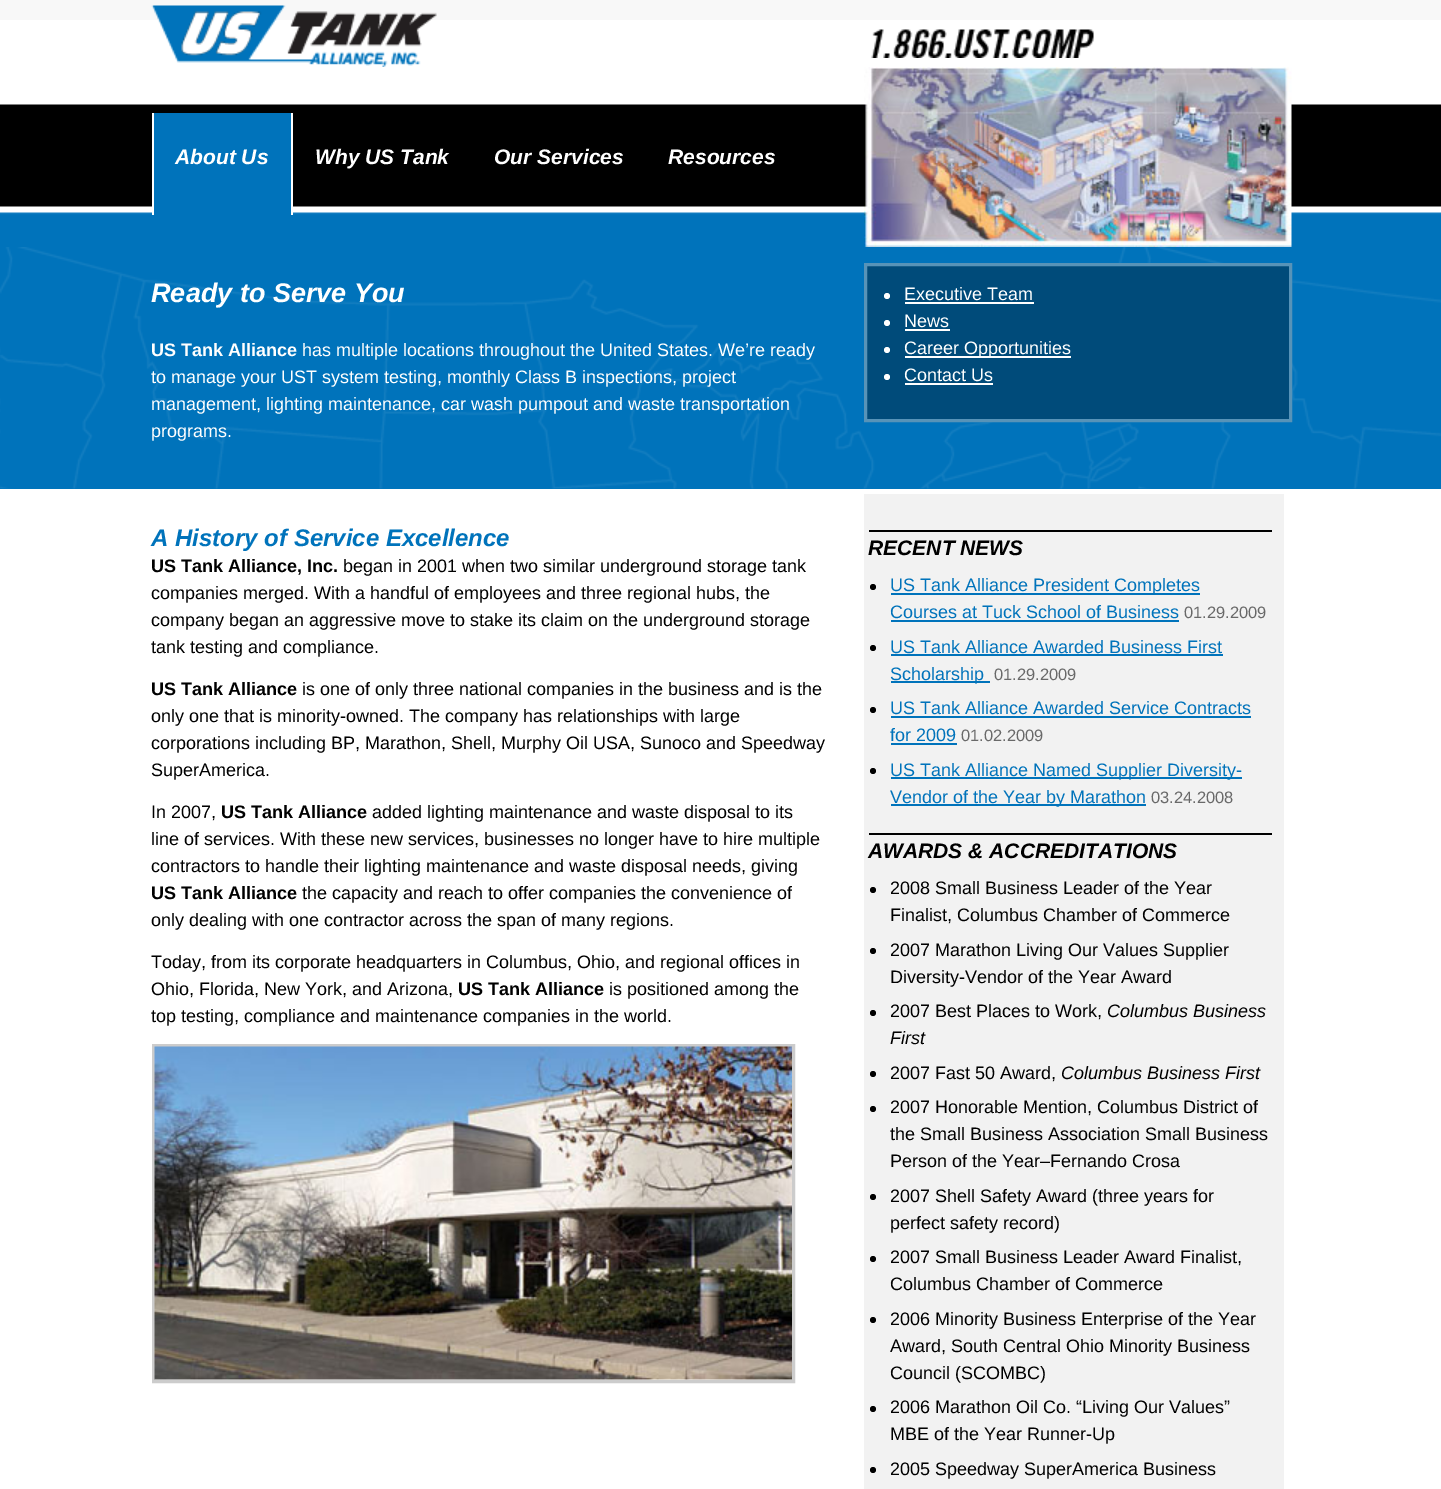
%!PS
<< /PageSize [1441 1489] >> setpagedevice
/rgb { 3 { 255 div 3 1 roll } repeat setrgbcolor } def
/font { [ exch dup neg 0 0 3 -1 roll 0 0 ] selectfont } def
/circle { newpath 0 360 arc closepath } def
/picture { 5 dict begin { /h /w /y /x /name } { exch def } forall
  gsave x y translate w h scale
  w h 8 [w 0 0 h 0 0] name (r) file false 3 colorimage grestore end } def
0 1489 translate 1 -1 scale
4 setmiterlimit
255 255 255 rgb
0 0 1441 1489 rectfill
248 248 248 rgb
0 0 1441 20 rectfill
(img/1.rgb) 151 5 286 62 picture
(img/2.rgb) 871 29 223 29 picture
(img/3.rgb) 0 104 1441 143 picture
[
  [154 113 137 102 0 115 187]
  [291 113 2 102 255 255 255]
  [152 113 2 102 255 255 255]
] { aload pop rgb rectfill } forall
(img/4.rgb) 864 67 428 180 picture
0 115 187 rgb
0 488 1441 1 rectfill
(img/5.rgb) 0 247 1441 242 picture
0 75 122 rgb
865.5 264.5 moveto 1290.5 264.5 lineto 1290.5 420.5 lineto 865.5 420.5 lineto closepath gsave fill grestore
87 147 184 rgb
3 setlinewidth
stroke
255 255 255 rgb
887 296 3 circle fill
905 302 129 2 rectfill
887 323 3 circle fill
905 329 45 2 rectfill
887 350 3 circle fill
905 356 166 2 rectfill
887 377 3 circle fill
905 383 88 2 rectfill
242 242 242 rgb
864 494 420 995 rectfill
204 204 204 rgb
153.5 1045.5 640 336 rectstroke
(img/6.rgb) 154 1046 638 334 picture
0 0 0 rgb
869 530 403 2 rectfill
873 587 3 circle fill
0 115 187 rgb
891 593 309 2 rectfill
891 620 288 2 rectfill
0 0 0 rgb
873 648 3 circle fill
0 115 187 rgb
891 654 332 2 rectfill
891 681 99 2 rectfill
0 0 0 rgb
873 710 3 circle fill
0 115 187 rgb
891 716 360 2 rectfill
891 743 66 2 rectfill
0 0 0 rgb
873 771 3 circle fill
[
  [891 777 351 2 0 115 187]
  [891 804 255 2 0 115 187]
  [869 833 403 2 0 0 0]
] { aload pop rgb rectfill } forall
873 890 3 circle fill
873 951 3 circle fill
873 1013 3 circle fill
873 1074 3 circle fill
873 1109 3 circle fill
873 1197 3 circle fill
873 1259 3 circle fill
873 1320 3 circle fill
873 1409 3 circle fill
873 1470 3 circle fill
/LiberationSans-BoldItalic 21 font
255 255 255 rgb
[
  [(About Us) 175 164]
  [(Why US Tank) 315 164]
  [(Our Services) 494 164]
  [(Resources) 668 164]
] { aload pop moveto show } forall
/LiberationSans-BoldItalic 27 font
151 302 moveto (Ready to Serve You) show
/LiberationSans-Bold 18 font
151 356 moveto (US Tank Alliance) show
/LiberationSans-Regular 18 font
[
  [(has multiple locations throughout the United States. We’re ready) 302 356]
  [(to manage your UST system testing, monthly Class B inspections, project) 151 383]
  [(management, lighting maintenance, car wash pumpout and waste transportation) 151 410]
  [(programs.) 151 437]
  [(Executive Team) 904 300]
  [(News) 904 327]
  [(Career Opportunities) 904 354]
  [(Contact Us) 904 381]
] { aload pop moveto show } forall
/LiberationSans-BoldItalic 24 font
0 115 187 rgb
151 546 moveto (A History of Service Excellence) show
/LiberationSans-Bold 18 font
0 0 0 rgb
151 572 moveto (US Tank Alliance, Inc.) show
/LiberationSans-Regular 18 font
[
  [(began in 2001 when two similar underground storage tank) 343 572]
  [(companies merged. With a handful of employees and three regional hubs, the) 151 599]
  [(company began an aggressive move to stake its claim on the underground storage) 151 626]
  [(tank testing and compliance.) 151 653]
] { aload pop moveto show } forall
/LiberationSans-Bold 18 font
151 695 moveto (US Tank Alliance) show
/LiberationSans-Regular 18 font
[
  [(is one of only three national companies in the business and is the) 302 695]
  [(only one that is minority-owned. The company has relationships with large) 151 722]
  [(corporations including BP, Marathon, Shell, Murphy Oil USA, Sunoco and Speedway) 151 749]
  [(SuperAmerica.) 151 776]
  [(In 2007,) 151 818]
] { aload pop moveto show } forall
/LiberationSans-Bold 18 font
221 818 moveto (US Tank Alliance) show
/LiberationSans-Regular 18 font
[
  [(added lighting maintenance and waste disposal to its) 372 818]
  [(line of services. With these new services, businesses no longer have to hire multiple) 151 845]
  [(contractors to handle their lighting maintenance and waste disposal needs, giving) 151 872]
] { aload pop moveto show } forall
/LiberationSans-Bold 18 font
151 899 moveto (US Tank Alliance) show
/LiberationSans-Regular 18 font
[
  [(the capacity and reach to offer companies the convenience of) 302 899]
  [(only dealing with one contractor across the span of many regions.) 151 926]
  [(Today, from its corporate headquarters in Columbus, Ohio, and regional offices in) 151 968]
  [(Ohio, Florida, New York, and Arizona,) 151 995]
] { aload pop moveto show } forall
/LiberationSans-Bold 18 font
458 995 moveto (US Tank Alliance) show
/LiberationSans-Regular 18 font
609 995 moveto (is positioned among the) show
151 1022 moveto (top testing, compliance and maintenance companies in the world.) show
/LiberationSans-BoldItalic 21 font
868 555 moveto (RECENT NEWS) show
/LiberationSans-Regular 18 font
0 115 187 rgb
890 591 moveto (US Tank Alliance President Completes) show
890 618 moveto (Courses at Tuck School of Business) show
/LiberationSans-Regular 16.5 font
105 105 105 rgb
1184 618 moveto (01.29.2009) show
/LiberationSans-Regular 18 font
0 115 187 rgb
890 653 moveto (US Tank Alliance Awarded Business First) show
890 680 moveto (Scholarship) show
/LiberationSans-Regular 16.5 font
105 105 105 rgb
994 680 moveto (01.29.2009) show
/LiberationSans-Regular 18 font
0 115 187 rgb
890 714 moveto (US Tank Alliance Awarded Service Contracts) show
890 741 moveto (for 2009) show
/LiberationSans-Regular 16.5 font
105 105 105 rgb
961 741 moveto (01.02.2009) show
/LiberationSans-Regular 18 font
0 115 187 rgb
890 776 moveto (US Tank Alliance Named Supplier Diversity-) show
890 803 moveto (Vendor of the Year by Marathon) show
/LiberationSans-Regular 16.5 font
105 105 105 rgb
1151 803 moveto (03.24.2008) show
/LiberationSans-BoldItalic 21 font
0 0 0 rgb
868 858 moveto (AWARDS & ACCREDITATIONS) show
/LiberationSans-Regular 18 font
[
  [(2008 Small Business Leader of the Year) 890 894]
  [(Finalist, Columbus Chamber of Commerce) 890 921]
  [(2007 Marathon Living Our Values Supplier) 890 956]
  [(Diversity-Vendor of the Year Award) 890 983]
  [(2007 Best Places to Work,) 890 1017]
] { aload pop moveto show } forall
/LiberationSans-Italic 18 font
1107 1017 moveto (Columbus Business) show
890 1044 moveto (First) show
/LiberationSans-Regular 18 font
890 1079 moveto (2007 Fast 50 Award,) show
/LiberationSans-Italic 18 font
1061 1079 moveto (Columbus Business First) show
/LiberationSans-Regular 18 font
[
  [(2007 Honorable Mention, Columbus District of) 890 1113]
  [(the Small Business Association Small Business) 890 1140]
  [(Person of the Year–Fernando Crosa) 890 1167]
  [(2007 Shell Safety Award \(three years for) 890 1202]
  [(perfect safety record\)) 890 1229]
  [(2007 Small Business Leader Award Finalist,) 890 1263]
  [(Columbus Chamber of Commerce) 890 1290]
  [(2006 Minority Business Enterprise of the Year) 890 1325]
  [(Award, South Central Ohio Minority Business) 890 1352]
  [(Council \(SCOMBC\)) 890 1379]
  [(2006 Marathon Oil Co. “Living Our Values”) 890 1413]
  [(MBE of the Year Runner-Up) 890 1440]
  [(2005 Speedway SuperAmerica Business) 890 1475]
] { aload pop moveto show } forall
showpage
